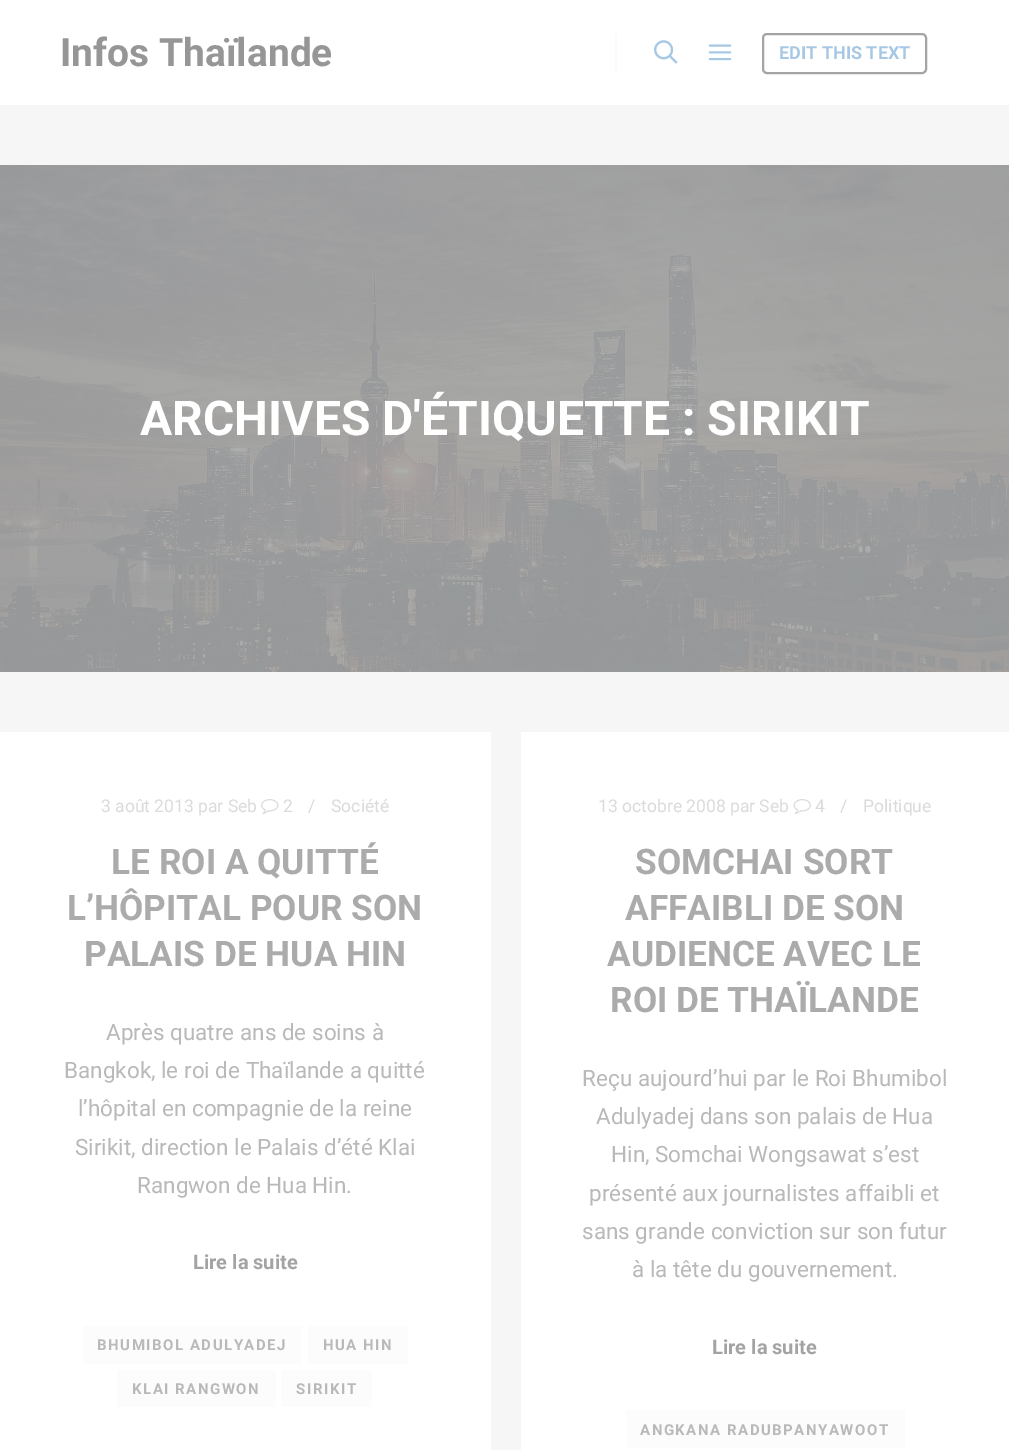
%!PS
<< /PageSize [1009 1450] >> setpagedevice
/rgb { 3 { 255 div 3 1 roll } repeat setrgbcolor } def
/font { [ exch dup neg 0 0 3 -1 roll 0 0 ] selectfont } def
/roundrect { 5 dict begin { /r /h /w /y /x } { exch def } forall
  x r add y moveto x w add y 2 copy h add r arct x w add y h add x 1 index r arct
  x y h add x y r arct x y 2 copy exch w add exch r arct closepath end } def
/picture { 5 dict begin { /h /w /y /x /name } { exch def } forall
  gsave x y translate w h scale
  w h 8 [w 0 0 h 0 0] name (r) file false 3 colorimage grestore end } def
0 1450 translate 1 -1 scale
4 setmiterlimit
246 246 246 rgb
0 0 1009 1450 rectfill
255 255 255 rgb
0 0 1009 105 rectfill
250 250 250 rgb
615 35 2 37 rectfill
(img/1.rgb) 654 40 24 24 picture
(img/2.rgb) 708 44 24 17 picture
164 164 164 rgb
2 setlinewidth
763 34 163 39 4 roundrect stroke
(img/3.rgb) 0 165 1009 507 picture
255 255 255 rgb
0 732 491 718 rectfill
(img/4.rgb) 261 799 18 15 picture
[
  [83 1326 219 38 252 252 252]
  [308 1326 100 38 252 252 252]
  [117 1370 159 37 252 252 252]
  [281 1370 91 37 252 252 252]
  [521 732 488 718 255 255 255]
] { aload pop rgb rectfill } forall
(img/5.rgb) 793 799 18 15 picture
252 252 252 rgb
626 1410 279 38 rectfill
/Roboto-Bold 39 font
150 150 150 rgb
60 66 moveto (Infos Thaïlande) show
/Roboto-Bold 18 font
167 200 229 rgb
779 59 moveto (EDIT THIS TEXT) show
/Roboto-Bold 48 font
255 255 255 rgb
140 435 moveto (ARCHIVES D'ÉTIQUETTE : SIRIKIT) show
/Roboto-Regular 17.5 font
219 219 219 rgb
[
  [(3 août 2013 par Seb) 101 812]
  [(2) 283 812]
  [(/) 308 812]
  [(Société) 331 812]
] { aload pop moveto show } forall
/Roboto-Bold 35.25 font
171 171 171 rgb
[
  [(LE ROI A QUITTÉ) 111 874]
  [(L’HÔPITAL POUR SON) 67 920]
  [(PALAIS DE HUA HIN) 84 966]
] { aload pop moveto show } forall
/Roboto-Regular 22.5 font
185 185 185 rgb
[
  [(Après quatre ans de soins à) 106 1040]
  [(Bangkok, le roi de Thaïlande a quitté) 64 1078]
  [(l’hôpital en compagnie de la reine) 78 1116]
  [(Sirikit, direction le Palais d’été Klai) 75 1155]
  [(Rangwon de Hua Hin.) 137 1193]
] { aload pop moveto show } forall
/Roboto-Bold 20 font
163 163 163 rgb
193 1269 moveto (Lire la suite) show
/Roboto-Bold 15 font
185 185 185 rgb
97 1350 moveto 1.5 0 (BHUMIBOL ADULYADEJ) ashow
323 1350 moveto 1.5 0 (HUA HIN) ashow
132 1394 moveto 1.5 0 (KLAI RANGWON) ashow
296 1394 moveto 1.5 0 (SIRIKIT) ashow
/Roboto-Regular 17.5 font
219 219 219 rgb
[
  [(13 octobre 2008 par Seb) 598 812]
  [(4) 815 812]
  [(/) 840 812]
  [(Politique) 863 812]
] { aload pop moveto show } forall
/Roboto-Bold 35.25 font
171 171 171 rgb
[
  [(SOMCHAI SORT) 635 874]
  [(AFFAIBLI DE SON) 625 920]
  [(AUDIENCE AVEC LE) 607 966]
  [(ROI DE THAÏLANDE) 610 1012]
] { aload pop moveto show } forall
/Roboto-Regular 22.5 font
185 185 185 rgb
[
  [(Reçu aujourd’hui par le Roi Bhumibol) 582 1086]
  [(Adulyadej dans son palais de Hua) 596 1124]
  [(Hin, Somchai Wongsawat s’est) 611 1162]
  [(présenté aux journalistes affaibli et) 589 1201]
  [(sans grande conviction sur son futur) 582 1239]
  [(à la tête du gouvernement.) 632 1277]
] { aload pop moveto show } forall
/Roboto-Bold 20 font
163 163 163 rgb
712 1354 moveto (Lire la suite) show
/Roboto-Bold 15 font
185 185 185 rgb
640 1435 moveto 1.5 0 (ANGKANA RADUBPANYAWOOT) ashow
showpage
